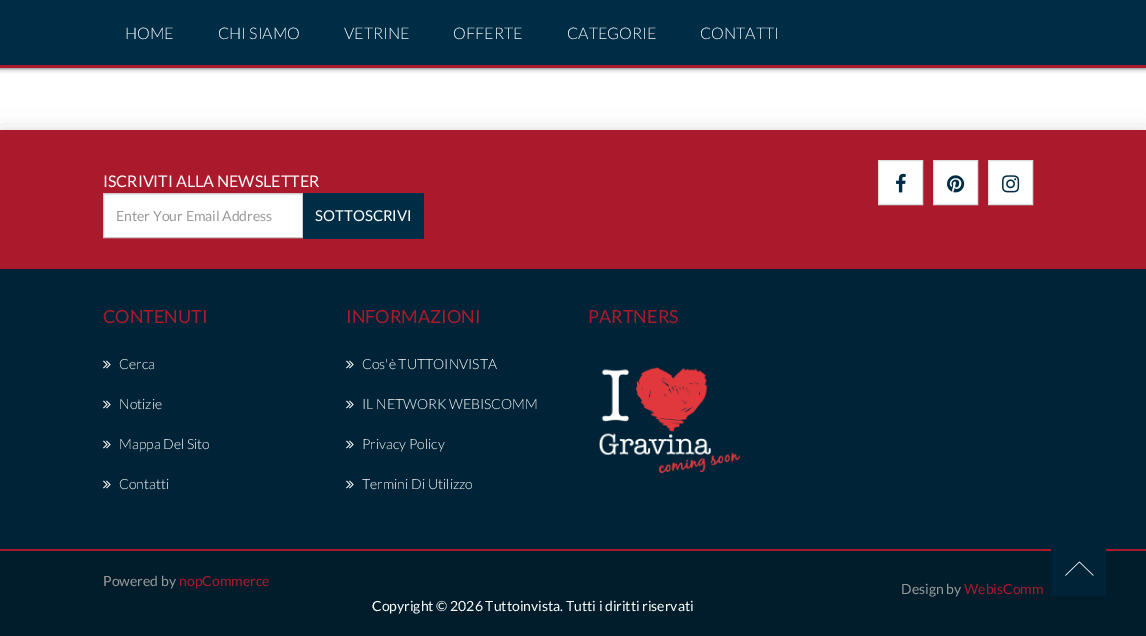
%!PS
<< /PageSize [1146 636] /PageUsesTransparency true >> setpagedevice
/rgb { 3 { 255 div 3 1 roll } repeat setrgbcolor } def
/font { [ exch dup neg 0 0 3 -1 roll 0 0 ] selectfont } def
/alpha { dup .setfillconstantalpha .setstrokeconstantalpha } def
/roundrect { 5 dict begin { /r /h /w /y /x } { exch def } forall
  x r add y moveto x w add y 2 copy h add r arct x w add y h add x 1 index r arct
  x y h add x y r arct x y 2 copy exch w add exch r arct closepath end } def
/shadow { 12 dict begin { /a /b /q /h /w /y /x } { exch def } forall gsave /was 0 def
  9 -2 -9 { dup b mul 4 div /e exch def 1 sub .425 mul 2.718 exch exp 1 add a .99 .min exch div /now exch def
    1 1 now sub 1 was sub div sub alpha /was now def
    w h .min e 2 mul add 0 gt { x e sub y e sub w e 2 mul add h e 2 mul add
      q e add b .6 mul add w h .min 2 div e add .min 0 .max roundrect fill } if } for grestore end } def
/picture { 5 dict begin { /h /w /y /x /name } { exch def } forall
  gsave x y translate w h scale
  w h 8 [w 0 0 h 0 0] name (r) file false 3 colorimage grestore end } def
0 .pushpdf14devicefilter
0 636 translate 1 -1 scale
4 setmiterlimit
255 255 255 rgb
0 0 1146 636 rectfill
68 68 68 rgb
0 0 1146 68 0 2.5 1 shadow
0 45 70 rgb
0 0 1146 65 rectfill
170 25 44 rgb
0 65 1146 3 rectfill
221 221 221 rgb
0 130 1146 506 0 10 1 shadow
[
  [0 130 1146 139 170 25 44]
  [104 195 198 42 255 255 255]
  [104 194 198 1 236 236 236]
] { aload pop rgb rectfill } forall
204 204 204 rgb
103.5 193.5 199 44 rectstroke
0 45 70 rgb
303 193 121 46 rectfill
255 255 255 rgb
878.5 160.5 moveto 922.5 160.5 lineto 922.5 204.5 lineto 878.5 204.5 lineto closepath gsave fill grestore
221 221 221 rgb
stroke
(img/1.rgb) 896 173 10 20 picture
255 255 255 rgb
933.5 160.5 moveto 977.5 160.5 lineto 977.5 204.5 lineto 933.5 204.5 lineto closepath gsave fill grestore
221 221 221 rgb
stroke
(img/2.rgb) 947 175 18 18 picture
255 255 255 rgb
988.5 160.5 moveto 1032.5 160.5 lineto 1032.5 204.5 lineto 988.5 204.5 lineto closepath gsave fill grestore
221 221 221 rgb
stroke
(img/3.rgb) 1002 175 18 18 picture
0 35 55 rgb
0 269 1146 280 rectfill
170 25 44 rgb
0 549 1146 2 rectfill
(img/4.rgb) 103 360 8 9 picture
(img/4.rgb) 103 400 8 9 picture
(img/4.rgb) 103 440 8 9 picture
(img/4.rgb) 103 480 8 9 picture
(img/4.rgb) 346 360 8 9 picture
(img/4.rgb) 346 400 8 9 picture
(img/4.rgb) 346 440 8 9 picture
(img/4.rgb) 346 480 8 9 picture
(img/5.rgb) 599 367 141 107 picture
1 28 43 rgb
0 551 1146 85 rectfill
0 35 55 rgb
1051 549 55 47 rectfill
(img/6.rgb) 1065 561 29 15 picture
/Lato-Light 16 font
255 255 255 rgb
[
  [(HOME) 125 39]
  [(CHI SIAMO) 218 39]
  [(VETRINE) 344 39]
  [(OFFERTE) 453 39]
  [(CATEGORIE) 567 39]
  [(CONTATTI) 700 39]
] { aload pop moveto show } forall
/Lato-Regular 16 font
103 187 moveto (ISCRIVITI ALLA NEWSLETTER) show
/Lato-Regular 14 font
153 153 153 rgb
116 221 moveto (Enter Your Email Address) show
/Lato-Regular 15 font
255 255 255 rgb
315 221 moveto (SOTTOSCRIVI) show
/Lato-Regular 18 font
170 25 44 rgb
103 323 moveto (CONTENUTI) show
/Lato-Light 14 font
255 255 255 rgb
[
  [(Cerca) 119 369]
  [(Notizie) 119 409]
  [(Mappa Del Sito) 119 449]
  [(Contatti) 119 489]
] { aload pop moveto show } forall
/Lato-Regular 18 font
170 25 44 rgb
346 323 moveto (INFORMAZIONI) show
/Lato-Light 14 font
255 255 255 rgb
[
  [(Cos'è TUTTOINVISTA) 362 369]
  [(IL NETWORK WEBISCOMM) 362 409]
  [(Privacy Policy) 362 449]
  [(Termini Di Utilizzo) 362 489]
] { aload pop moveto show } forall
/Lato-Regular 18 font
170 25 44 rgb
588 323 moveto (PARTNERS) show
/Lato-Regular 14 font
153 153 153 rgb
103 586 moveto (Powered by) show
170 25 44 rgb
179 586 moveto (nopCommerce) show
153 153 153 rgb
901 594 moveto (Design by) show
170 25 44 rgb
964 594 moveto (WebisComm) show
255 255 255 rgb
372 611 moveto (Copyright © 2026 Tuttoinvista. Tutti i diritti riservati) show
.poppdf14devicefilter showpage
